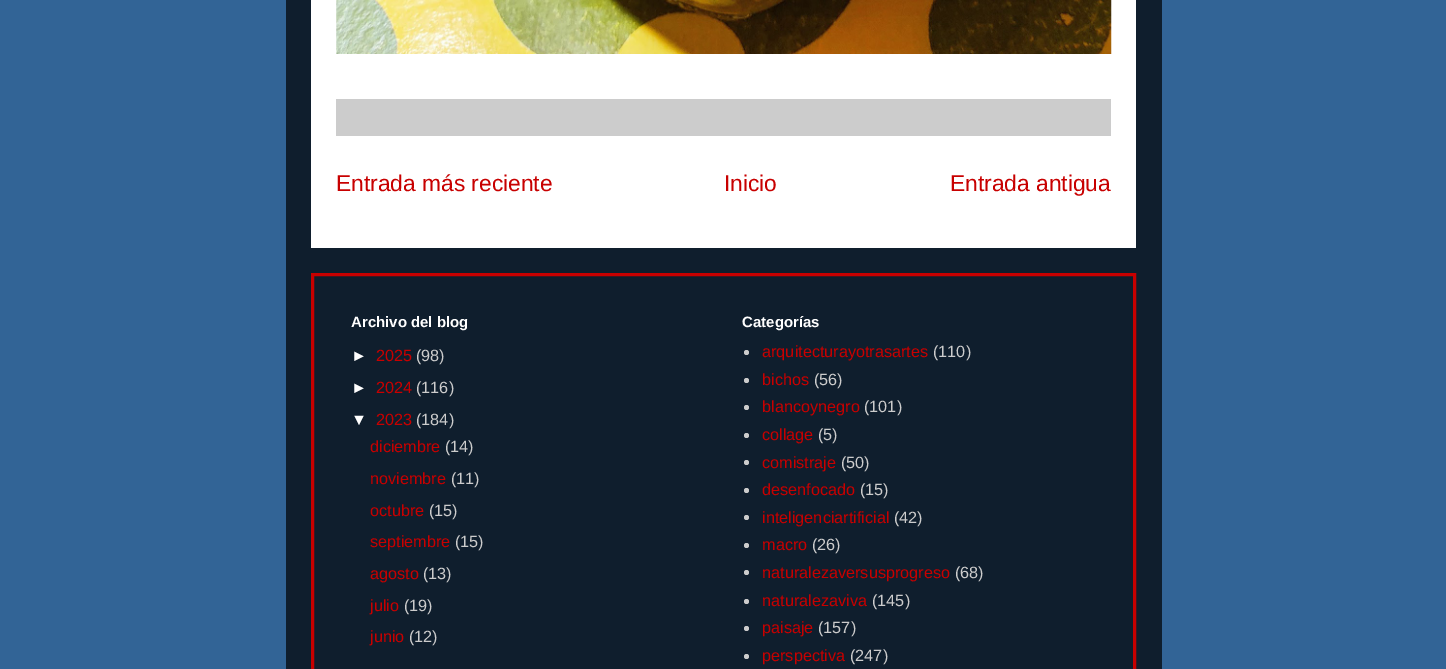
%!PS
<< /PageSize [1446 669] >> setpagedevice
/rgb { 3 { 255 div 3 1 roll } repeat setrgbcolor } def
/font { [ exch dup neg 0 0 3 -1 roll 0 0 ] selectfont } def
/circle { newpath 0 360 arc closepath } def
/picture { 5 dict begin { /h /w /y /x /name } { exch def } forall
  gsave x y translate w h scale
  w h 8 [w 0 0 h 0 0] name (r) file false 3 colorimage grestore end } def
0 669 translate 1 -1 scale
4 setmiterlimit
50 100 150 rgb
0 0 1446 669 rectfill
15 30 45 rgb
286 0 876 669 rectfill
255 255 255 rgb
311 0 825 248 rectfill
(img/1.rgb) 336 0 776 54 picture
204 204 204 rgb
336 99 775 37 rectfill
200 0 0 rgb
3 setlinewidth
312.5 274.5 822 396 rectstroke
204 204 204 rgb
746.5 352.5 2.5 circle fill
746.5 380.5 2.5 circle fill
746.5 407.5 2.5 circle fill
746.5 435.5 2.5 circle fill
746.5 462.5 2.5 circle fill
746.5 490.5 2.5 circle fill
746.5 517.5 2.5 circle fill
746.5 545.5 2.5 circle fill
746.5 572.5 2.5 circle fill
746.5 601.5 2.5 circle fill
746.5 628.5 2.5 circle fill
746.5 656.5 2.5 circle fill
/LiberationSans-Regular 22.75 font
200 0 0 rgb
[
  [(Entrada más reciente) 336 191]
  [(Inicio) 724 191]
  [(Entrada antigua) 950 191]
] { aload pop moveto show } forall
/LiberationSans-Bold 15 font
255 255 255 rgb
351 327 moveto (Archivo del blog) show
/LiberationSans-Regular 16.25 font
351 361 moveto (►) show
200 0 0 rgb
376 361 moveto (2025) show
204 204 204 rgb
416 361 moveto (\(98\)) show
255 255 255 rgb
351 393 moveto (►) show
200 0 0 rgb
376 393 moveto (2024) show
204 204 204 rgb
416 393 moveto (\(116\)) show
255 255 255 rgb
351 425 moveto (▼) show
200 0 0 rgb
376 425 moveto (2023) show
204 204 204 rgb
416 425 moveto (\(184\)) show
200 0 0 rgb
370 452 moveto (diciembre) show
204 204 204 rgb
445 452 moveto (\(14\)) show
200 0 0 rgb
370 484 moveto (noviembre) show
204 204 204 rgb
451 484 moveto (\(11\)) show
200 0 0 rgb
370 516 moveto (octubre) show
204 204 204 rgb
429 516 moveto (\(15\)) show
200 0 0 rgb
370 547 moveto (septiembre) show
204 204 204 rgb
455 547 moveto (\(15\)) show
200 0 0 rgb
370 579 moveto (agosto) show
204 204 204 rgb
423 579 moveto (\(13\)) show
200 0 0 rgb
370 611 moveto (julio) show
204 204 204 rgb
404 611 moveto (\(19\)) show
200 0 0 rgb
370 642 moveto (junio) show
204 204 204 rgb
409 642 moveto (\(12\)) show
/LiberationSans-Bold 15 font
255 255 255 rgb
742 327 moveto (Categorías) show
/LiberationSans-Regular 16.25 font
200 0 0 rgb
762 357 moveto (arquitecturayotrasartes) show
204 204 204 rgb
933 357 moveto (\(110\)) show
200 0 0 rgb
762 385 moveto (bichos) show
204 204 204 rgb
814 385 moveto (\(56\)) show
200 0 0 rgb
762 412 moveto (blancoynegro) show
204 204 204 rgb
864 412 moveto (\(101\)) show
200 0 0 rgb
762 440 moveto (collage) show
204 204 204 rgb
818 440 moveto (\(5\)) show
200 0 0 rgb
762 468 moveto (comistraje) show
204 204 204 rgb
841 468 moveto (\(50\)) show
200 0 0 rgb
762 495 moveto (desenfocado) show
204 204 204 rgb
860 495 moveto (\(15\)) show
200 0 0 rgb
762 523 moveto (inteligenciartificial) show
204 204 204 rgb
894 523 moveto (\(42\)) show
200 0 0 rgb
762 550 moveto (macro) show
204 204 204 rgb
812 550 moveto (\(26\)) show
200 0 0 rgb
762 578 moveto (naturalezaversusprogreso) show
204 204 204 rgb
955 578 moveto (\(68\)) show
200 0 0 rgb
762 606 moveto (naturalezaviva) show
204 204 204 rgb
872 606 moveto (\(145\)) show
200 0 0 rgb
762 633 moveto (paisaje) show
204 204 204 rgb
818 633 moveto (\(157\)) show
200 0 0 rgb
762 661 moveto (perspectiva) show
204 204 204 rgb
850 661 moveto (\(247\)) show
showpage
